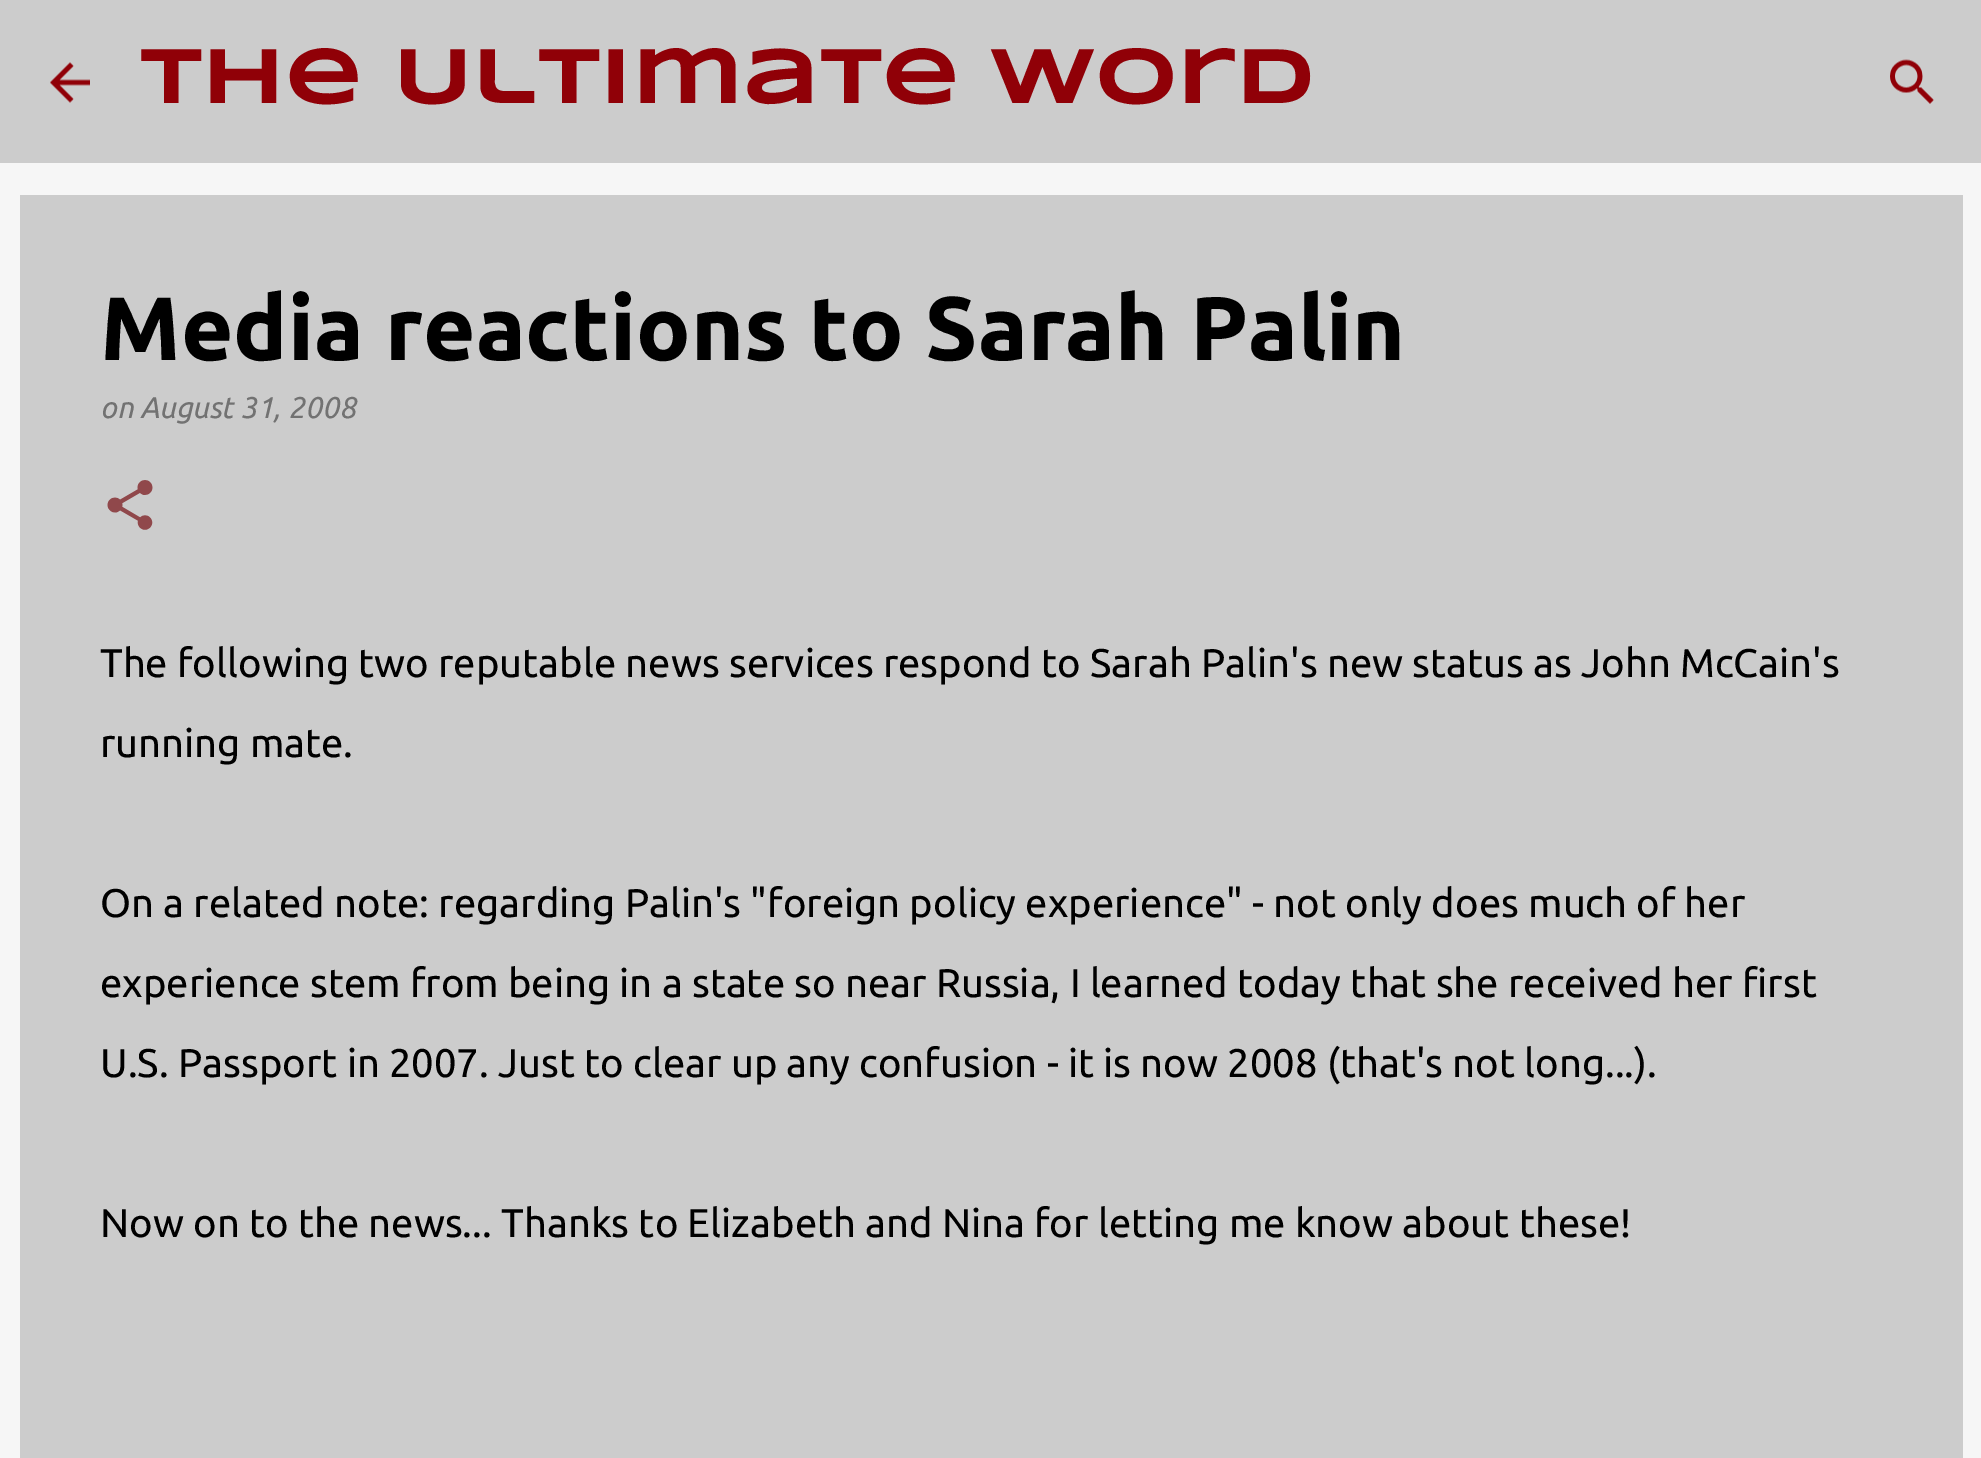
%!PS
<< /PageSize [1981 1458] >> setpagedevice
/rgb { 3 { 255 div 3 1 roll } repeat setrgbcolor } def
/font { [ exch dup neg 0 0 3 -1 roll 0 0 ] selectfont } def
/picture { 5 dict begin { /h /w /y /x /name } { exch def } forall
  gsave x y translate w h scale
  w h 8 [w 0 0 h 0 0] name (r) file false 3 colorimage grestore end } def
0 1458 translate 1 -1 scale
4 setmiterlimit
246 246 246 rgb
0 0 1981 1458 rectfill
204 204 204 rgb
0 0 1981 163 rectfill
(img/1.rgb) 50 62 40 41 picture
(img/2.rgb) 1890 59 44 45 picture
20 195 1943 1263 rectfill
(img/3.rgb) 107 480 46 50 picture
/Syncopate-Bold 80 font
144 0 7 rgb
140 103 moveto (The Ultimate Word) show
/Ubuntu-Bold 90 font
0 0 0 rgb
100 360 moveto (Media reactions to Sarah Palin) show
/Ubuntu-Italic 30 font
114 114 114 rgb
100 418 moveto (on August 31, 2008) show
/Ubuntu-Regular 40 font
0 0 0 rgb
[
  [(The following two reputable news services respond to Sarah Palin's new status as John McCain's) 100 677]
  [(running mate.) 100 757]
  [(On a related note: regarding Palin's "foreign policy experience" - not only does much of her) 100 917]
  [(experience stem from being in a state so near Russia, I learned today that she received her first) 100 997]
  [(U.S. Passport in 2007. Just to clear up any confusion - it is now 2008 \(that's not long...\).) 100 1077]
  [(Now on to the news... Thanks to Elizabeth and Nina for letting me know about these!) 100 1237]
] { aload pop moveto show } forall
showpage
